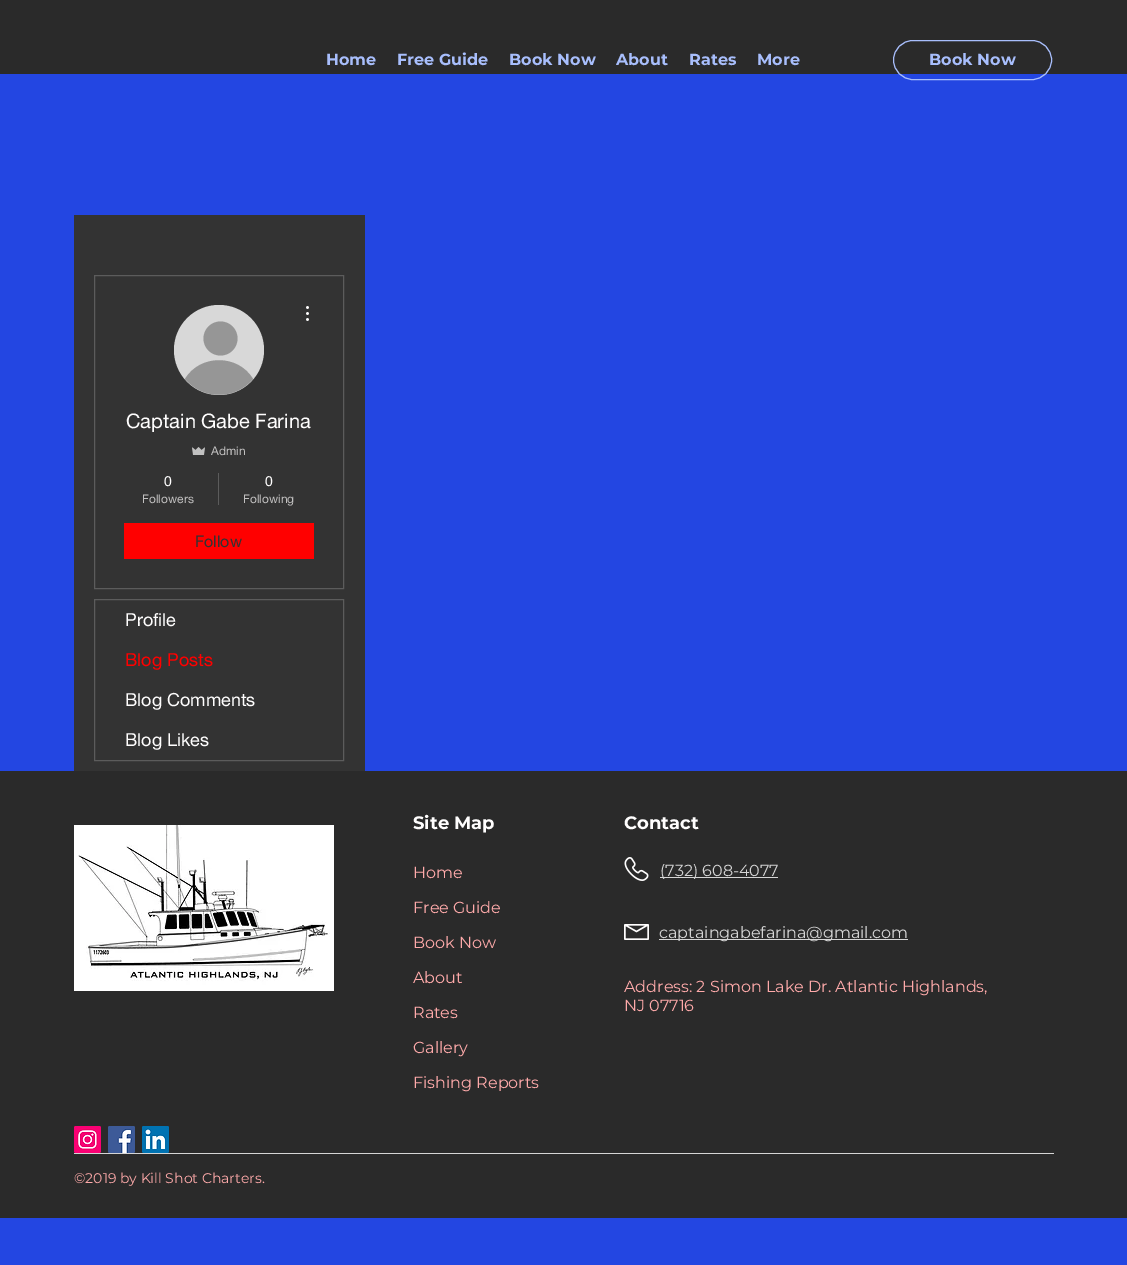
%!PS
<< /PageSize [1127 1265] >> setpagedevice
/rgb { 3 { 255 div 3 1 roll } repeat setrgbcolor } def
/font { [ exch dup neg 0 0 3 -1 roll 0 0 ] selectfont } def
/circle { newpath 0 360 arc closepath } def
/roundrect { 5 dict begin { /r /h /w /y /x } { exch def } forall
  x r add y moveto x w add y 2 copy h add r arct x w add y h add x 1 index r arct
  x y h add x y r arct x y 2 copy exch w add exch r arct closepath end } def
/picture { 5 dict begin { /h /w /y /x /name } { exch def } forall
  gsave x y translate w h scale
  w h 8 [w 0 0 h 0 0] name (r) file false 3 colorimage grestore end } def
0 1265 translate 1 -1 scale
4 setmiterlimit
35 70 226 rgb
0 0 1127 1265 rectfill
42 42 42 rgb
0 0 1127 74 rectfill
168 190 252 rgb
893.5 40.5 158 39 19.5 roundrect stroke
51 51 51 rgb
74 215 291 556 rectfill
92 92 92 rgb
94.5 275.5 249 313 rectstroke
216 216 216 rgb
219 350 45 circle fill
150 150 150 rgb
220.5 338.5 17 circle fill
253 379 moveto 235 400 203 400 185 379 curveto 200 354 238 354 253 379 curveto closepath fill
(img/1.rgb) 306 306 3 15 picture
(img/2.rgb) 192 447 13 8 picture
92 92 92 rgb
218 473 1 32 rectfill
255 0 0 rgb
124 523 190 36 rectfill
92 92 92 rgb
94.5 599.5 249 161 rectstroke
42 42 42 rgb
0 771 1127 447 rectfill
(img/3.rgb) 74 825 260 166 picture
(img/4.rgb) 624 857 25 24 picture
213 213 213 rgb
660 877 118 1 rectfill
(img/5.rgb) 624 924 25 16 picture
659 939 249 1 rectfill
(img/6.rgb) 74 1126 27 27 picture
(img/7.rgb) 108 1126 27 27 picture
(img/8.rgb) 142 1126 27 27 picture
74 1153 980 1 rectfill
/Montserrat-Bold 16 font
168 190 252 rgb
[
  [(Home) 326 65]
  [(Free Guide) 397 65]
  [(Book Now) 509 65]
  [(About) 616 65]
  [(Rates) 689 65]
  [(More) 757 65]
  [(Book Now) 929 65]
] { aload pop moveto show } forall
/helveticaneue-Regular 20 font
255 254 254 rgb
126 428 moveto (Captain Gabe Farina) show
/helveticaneue-Regular 12 font
194 193 193 rgb
211 455 moveto (Admin) show
/helveticaneue-Regular 14 font
255 254 254 rgb
164 486 moveto (0) show
/helveticaneue-Regular 12 font
194 193 193 rgb
142 503 moveto (Followers) show
/helveticaneue-Regular 14 font
255 254 254 rgb
265 486 moveto (0) show
/helveticaneue-Regular 12 font
194 193 193 rgb
243 503 moveto (Following) show
/helveticaneue-Regular 16 font
51 51 51 rgb
195 547 moveto (Follow) show
/helveticaneue-Regular 18 font
255 254 254 rgb
125 626 moveto (Profile) show
255 0 0 rgb
125 666 moveto (Blog Posts) show
255 254 254 rgb
125 706 moveto (Blog Comments) show
125 746 moveto (Blog Likes) show
/Montserrat-Bold 18 font
413 829 moveto (Site Map) show
624 829 moveto (Contact) show
/Montserrat-Regular 16 font
255 170 170 rgb
[
  [(Home) 413 878]
  [(Free Guide) 413 913]
  [(Book Now) 413 948]
  [(About) 413 983]
  [(Rates) 413 1018]
  [(Gallery) 413 1053]
  [(Fishing Reports) 413 1088]
] { aload pop moveto show } forall
213 213 213 rgb
660 876 moveto (\(732\) 608-4077) show
659 938 moveto (captaingabefarina@gmail.com) show
255 170 170 rgb
624 992 moveto (Address: 2 Simon Lake Dr. Atlantic Highlands,) show
624 1011 moveto (NJ 07716) show
/Montserrat-Regular 14 font
74 1183 moveto (©2019 by Kill Shot Charters.) show
showpage
